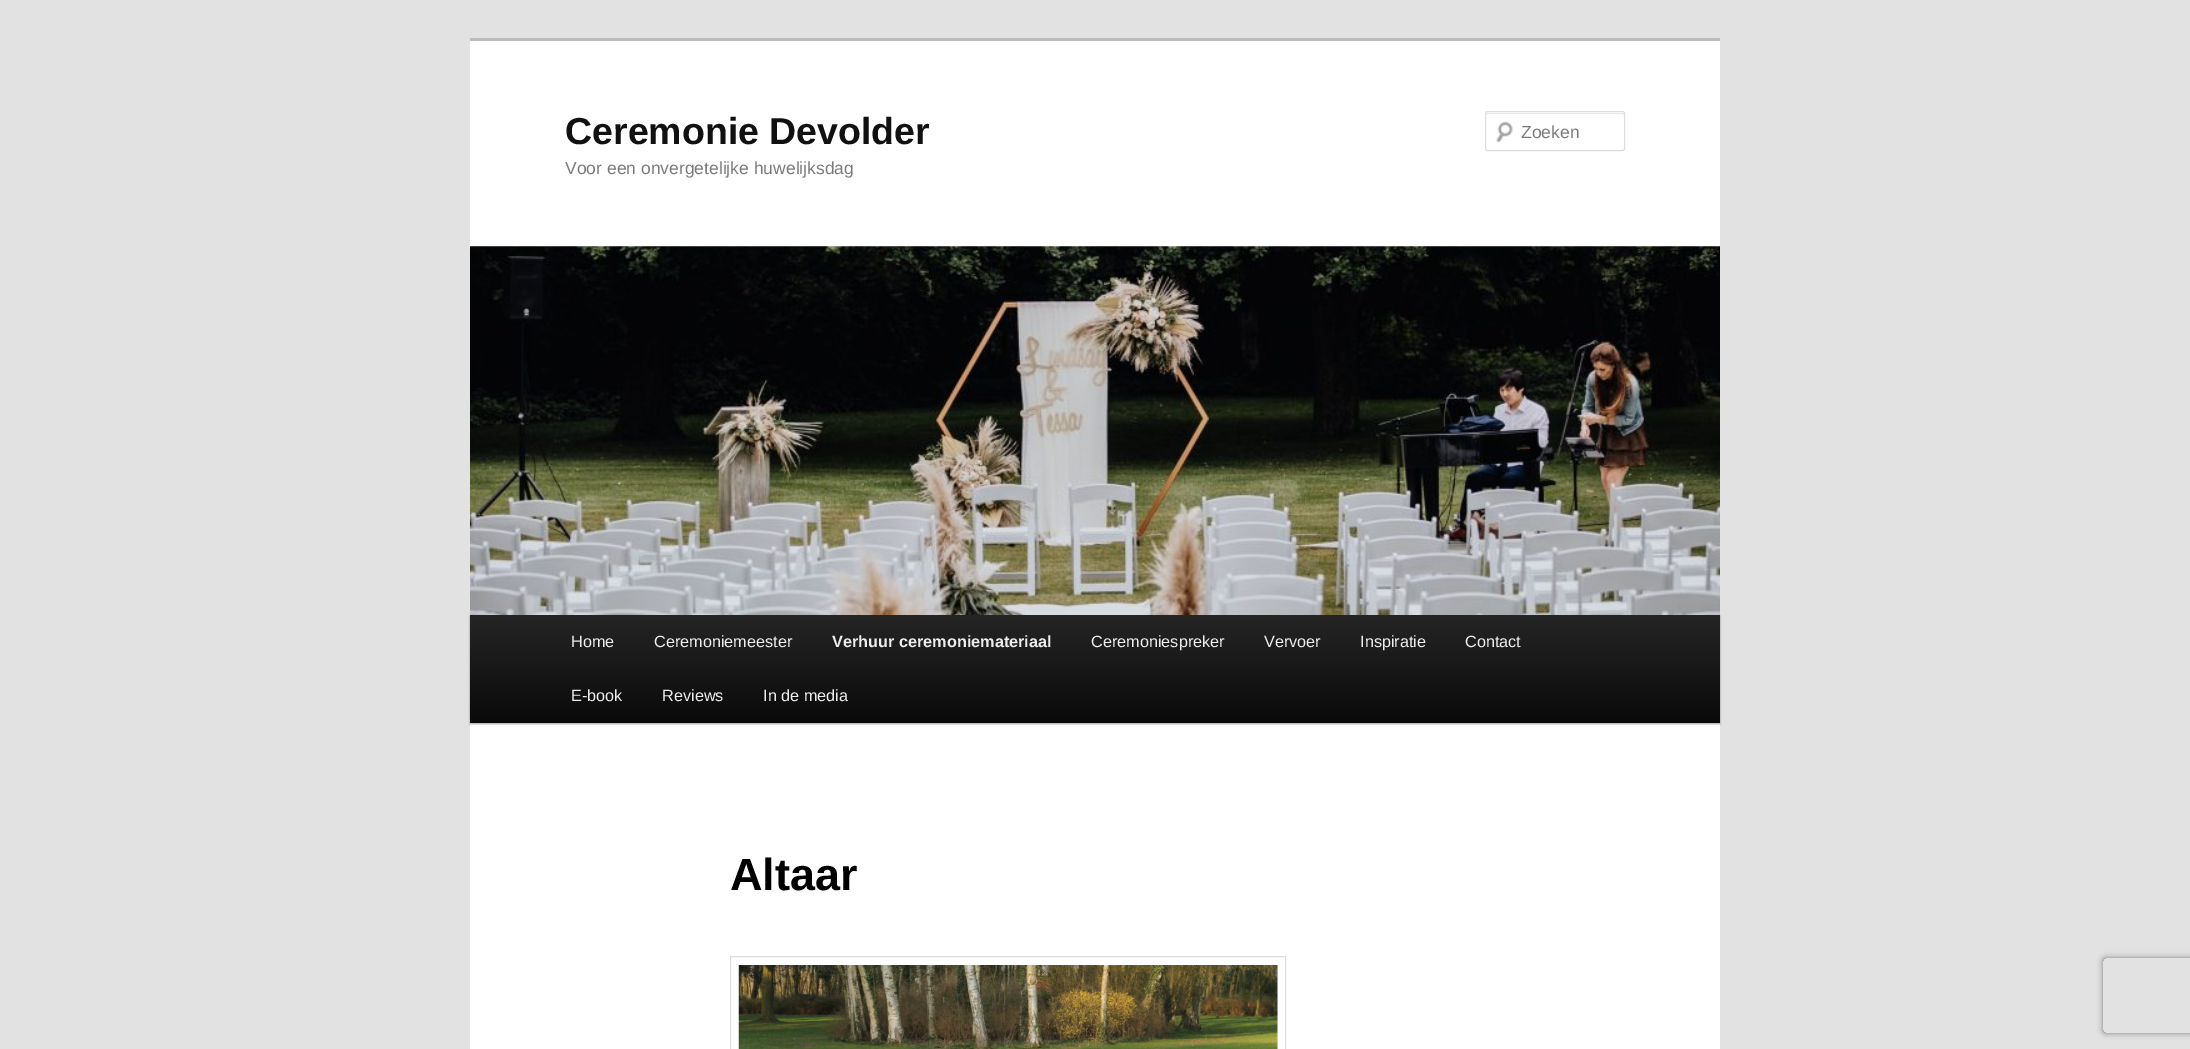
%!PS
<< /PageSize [2190 1049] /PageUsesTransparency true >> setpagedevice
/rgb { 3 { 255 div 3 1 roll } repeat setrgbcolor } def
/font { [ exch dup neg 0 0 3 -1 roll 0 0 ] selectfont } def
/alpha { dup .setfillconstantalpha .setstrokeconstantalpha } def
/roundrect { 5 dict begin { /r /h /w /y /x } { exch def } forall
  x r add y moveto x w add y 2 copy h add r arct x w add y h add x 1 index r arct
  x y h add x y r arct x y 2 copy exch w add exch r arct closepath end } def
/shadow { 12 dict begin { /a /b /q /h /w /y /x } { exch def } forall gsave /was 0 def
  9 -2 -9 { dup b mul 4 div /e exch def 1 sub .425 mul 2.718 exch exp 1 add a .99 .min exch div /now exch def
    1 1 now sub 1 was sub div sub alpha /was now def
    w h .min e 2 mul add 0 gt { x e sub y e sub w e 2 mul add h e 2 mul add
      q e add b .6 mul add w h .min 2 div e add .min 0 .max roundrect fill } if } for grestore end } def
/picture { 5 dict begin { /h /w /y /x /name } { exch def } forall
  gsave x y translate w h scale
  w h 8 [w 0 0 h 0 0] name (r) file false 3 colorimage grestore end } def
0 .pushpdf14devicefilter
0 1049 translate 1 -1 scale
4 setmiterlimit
226 226 226 rgb
0 0 2190 1049 rectfill
255 255 255 rgb
470 41 1250 1008 rectfill
187 187 187 rgb
470 38 1250 3 rectfill
(img/1.rgb) 1496 121 17 22 picture
230 230 230 rgb
1488 114 moveto 1622 114 lineto 1623 114 1624 114 1624 115 curveto 1624 114 1624 113 1623 113 curveto 1487 113 lineto 1486 113 1486 114 1486 115 curveto 1486 114 1487 114 1488 114 curveto closepath fill
221 221 221 rgb
1485.5 111.5 139 39 2 roundrect stroke
0 0 0 rgb
470 616 1250 108 0 1 0.4 shadow
(img/2.rgb) 470 246 1250 369 picture
gsave 470 615 moveto 1720 615 lineto 1720 723 lineto 470 723 lineto closepath clip newpath
<< /ShadingType 2 /ColorSpace /DeviceRGB /Coords [1095 615 1095 723] /Extend [true true] /Function << /FunctionType 2 /Domain [0 1] /C0 [0.145 0.145 0.145] /C1 [0.039 0.039 0.039] /N 1 >> >> shfill grestore
221 221 221 rgb
730.5 956.5 555 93 rectstroke
(img/3.rgb) 738 965 540 84 picture
gsave
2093 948 moveto 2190 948 lineto 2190 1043 lineto 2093 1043 lineto closepath 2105.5 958 moveto 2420.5 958 lineto 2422 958 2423 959 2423 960.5 curveto 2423 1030.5 lineto 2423 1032 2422 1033 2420.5 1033 curveto 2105.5 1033 lineto 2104 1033 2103 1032 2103 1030.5 curveto 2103 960.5 lineto 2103 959 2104 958 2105.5 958 curveto closepath eoclip newpath
128 128 128 rgb
2103 958 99 75 2.5 3 1 shadow
grestore
/LiberationSans-Bold 37.5 font
17 17 17 rgb
565 144 moveto (Ceremonie Devolder) show
/LiberationSans-Regular 17.5 font
122 122 122 rgb
565 174 moveto (Voor een onvergetelijke huwelijksdag) show
1521 138 moveto (Zoeken) show
/LiberationSans-Regular 16.25 font
238 238 238 rgb
571 647 moveto (Home) show
654 647 moveto (Ceremoniemeester) show
/LiberationSans-Bold 16.25 font
832 647 moveto (Verhuur ceremoniemateriaal) show
/LiberationSans-Regular 16.25 font
[
  [(Ceremoniespreker) 1091 647]
  [(Vervoer) 1264 647]
  [(Inspiratie) 1360 647]
  [(Contact) 1465 647]
  [(E-book) 571 701]
  [(Reviews) 662 701]
  [(In de media) 763 701]
] { aload pop moveto show } forall
/LiberationSans-Bold 45 font
0 0 0 rgb
730 890 moveto (Altaar) show
.poppdf14devicefilter showpage
